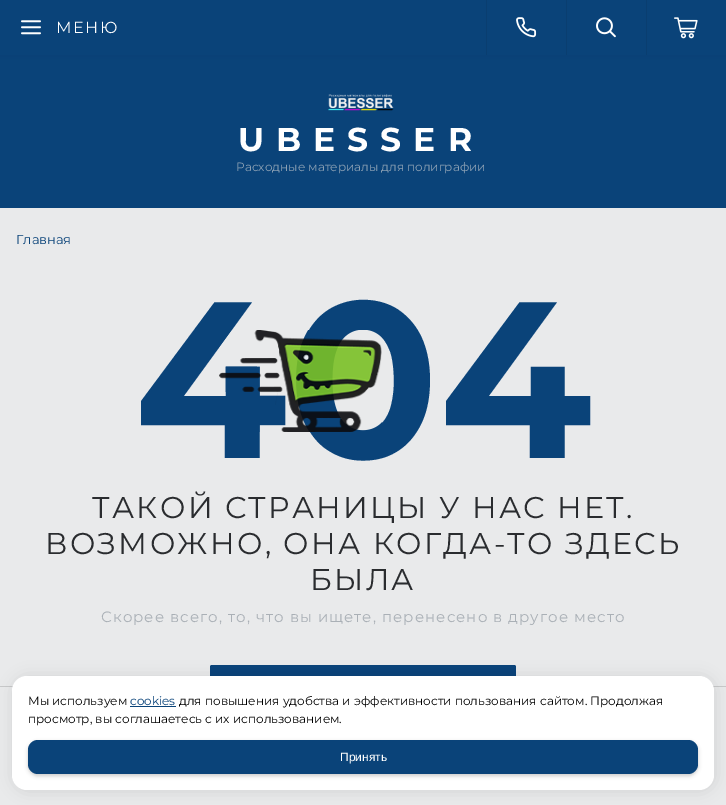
%!PS
<< /PageSize [726 805] /PageUsesTransparency true >> setpagedevice
/rgb { 3 { 255 div 3 1 roll } repeat setrgbcolor } def
/font { [ exch dup neg 0 0 3 -1 roll 0 0 ] selectfont } def
/alpha { dup .setfillconstantalpha .setstrokeconstantalpha } def
/roundrect { 5 dict begin { /r /h /w /y /x } { exch def } forall
  x r add y moveto x w add y 2 copy h add r arct x w add y h add x 1 index r arct
  x y h add x y r arct x y 2 copy exch w add exch r arct closepath end } def
/shadow { 12 dict begin { /a /b /q /h /w /y /x } { exch def } forall gsave /was 0 def
  9 -2 -9 { dup b mul 4 div /e exch def 1 sub .425 mul 2.718 exch exp 1 add a .99 .min exch div /now exch def
    1 1 now sub 1 was sub div sub alpha /was now def
    w h .min e 2 mul add 0 gt { x e sub y e sub w e 2 mul add h e 2 mul add
      q e add b .6 mul add w h .min 2 div e add .min 0 .max roundrect fill } if } for grestore end } def
/picture { 5 dict begin { /h /w /y /x /name } { exch def } forall
  gsave x y translate w h scale
  w h 8 [w 0 0 h 0 0] name (r) file false 3 colorimage grestore end } def
0 .pushpdf14devicefilter
0 805 translate 1 -1 scale
4 setmiterlimit
233 234 235 rgb
0 0 726 805 rectfill
10 67 121 rgb
0 55 726 153 rectfill
16 15 28 rgb
-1 -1 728 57 0 5 0.07 shadow
10 67 121 rgb
0 0 726 55 rectfill
(img/1.rgb) 21 20 20 15 picture
10 62 112 rgb
486 0 1 55 rectfill
(img/2.rgb) 516 17 21 21 picture
566 0 1 55 rectfill
(img/3.rgb) 596 17 20 21 picture
646 0 1 55 rectfill
(img/4.rgb) 674 17 24 22 picture
(img/5.rgb) 328 94 66 17 picture
200 201 202 rgb
0 686 726 1 rectfill
10 67 121 rgb
210 665 306 44 2 roundrect fill
0 0 0 rgb
13 677 702 114 15 7.5 0.1 shadow
255 255 255 rgb
12 676 702 114 15 roundrect fill
10 67 121 rgb
130 706 46 1 rectfill
0 0 0 rgb
28 742 670 34 10 2 0.2 shadow
10 67 121 rgb
28 740 670 34 10 roundrect fill
/Montserrat-Regular 16 font
255 255 255 rgb
56 33 moveto 1.5 0 (МЕНЮ) ashow
/Montserrat-Bold 33 font
238 151 moveto 12 0 (UBESSER) ashow
/Montserrat-Regular 12 font
139 160 180 rgb
236 171 moveto (Расходные материалы для полиграфии) show
/Montserrat-Regular 13 font
10 67 121 rgb
16 244 moveto (Главная) show
/Montserrat-Bold 223 font
134 458 moveto (404) show
(img/6.rgb) 219 330 38 62 picture
(img/7.rgb) 257 330 125 102 picture
/Montserrat-Regular 30 font
42 44 47 rgb
92 518 moveto 2.25 0 (ТАКОЙ СТРАНИЦЫ У НАС НЕТ.) ashow
45 554 moveto 2.25 0 (ВОЗМОЖНО, ОНА КОГДА-ТО ЗДЕСЬ) ashow
310 590 moveto 2.25 0 (БЫЛА) ashow
/Montserrat-Regular 15 font
170 176 182 rgb
101 622 moveto 1.05 0 (Скорее всего, то, что вы ищете, перенесено в другое место) ashow
/Montserrat-Regular 12 font
0 0 0 rgb
28 705 moveto (Мы используем) show
10 67 121 rgb
130 705 moveto (cookies) show
0 0 0 rgb
179 705 moveto (для повышения удобства и эффективности пользования сайтом. Продолжая) show
28 723 moveto (просмотр, вы соглашаетесь с их использованием.) show
/LiberationSans-Regular 12 font
255 255 255 rgb
340 761 moveto (Принять) show
.poppdf14devicefilter showpage
